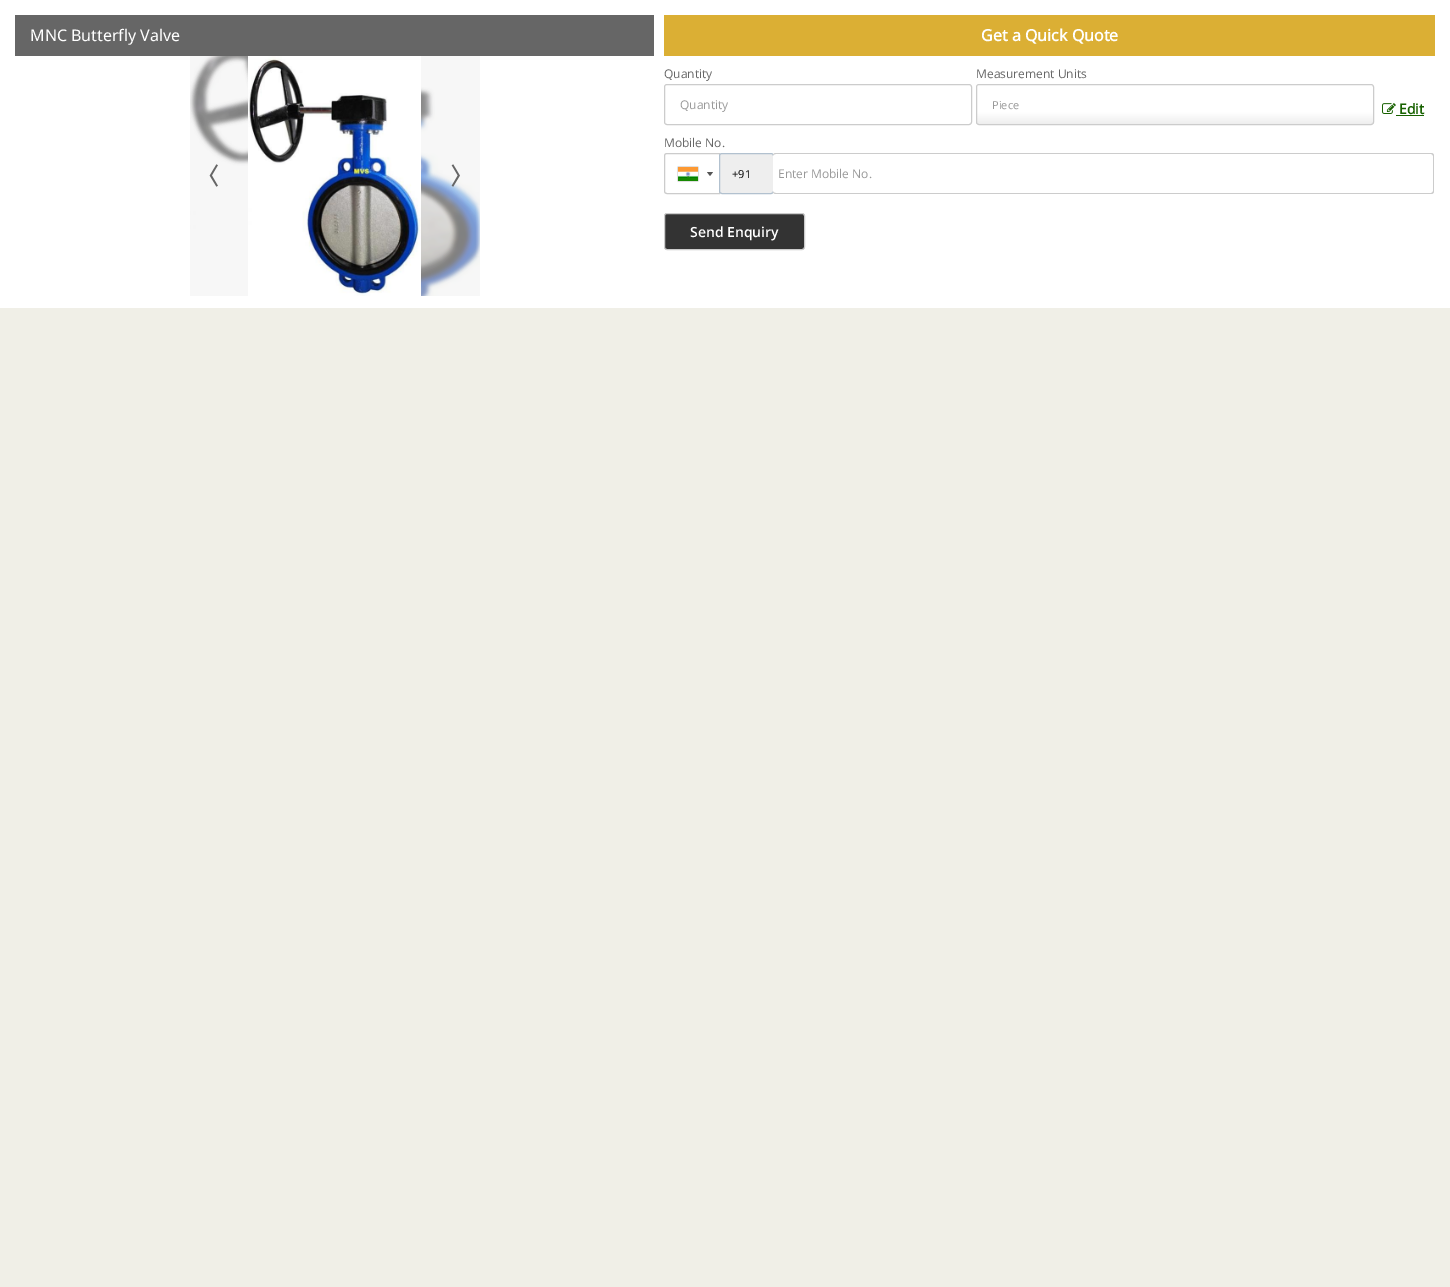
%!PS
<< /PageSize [1450 1287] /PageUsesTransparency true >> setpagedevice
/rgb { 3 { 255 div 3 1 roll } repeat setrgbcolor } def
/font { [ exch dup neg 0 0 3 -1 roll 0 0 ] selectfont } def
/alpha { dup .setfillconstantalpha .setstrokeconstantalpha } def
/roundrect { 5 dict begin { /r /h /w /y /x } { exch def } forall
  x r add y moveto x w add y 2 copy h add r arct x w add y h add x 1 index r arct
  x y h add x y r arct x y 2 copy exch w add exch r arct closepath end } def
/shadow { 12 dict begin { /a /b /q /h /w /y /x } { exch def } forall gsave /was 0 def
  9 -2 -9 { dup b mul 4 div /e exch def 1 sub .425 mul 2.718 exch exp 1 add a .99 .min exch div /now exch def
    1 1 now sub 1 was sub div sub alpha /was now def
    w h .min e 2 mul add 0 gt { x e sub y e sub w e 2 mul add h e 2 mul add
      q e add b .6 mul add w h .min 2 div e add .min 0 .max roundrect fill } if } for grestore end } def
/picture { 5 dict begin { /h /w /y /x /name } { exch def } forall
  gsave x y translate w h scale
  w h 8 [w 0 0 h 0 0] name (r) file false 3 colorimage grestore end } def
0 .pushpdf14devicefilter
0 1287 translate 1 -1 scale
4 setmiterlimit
240 239 231 rgb
0 0 1450 1287 rectfill
[
  [0 0 1450 308 255 255 255]
  [190 56 5 240 247 247 247]
  [15 15 639 41 102 102 102]
] { aload pop rgb rectfill } forall
(img/1.rgb) 190 56 290 240 picture
gsave
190 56 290 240 rectclip
247 247 247 rgb
190 46 300 260 0 2 0.5 shadow
grestore
(img/2.rgb) 248 56 173 240 picture
(img/3.rgb) 476 205 4 51 picture
219 175 52 rgb
664 15 771 41 rectfill
204 204 204 rgb
664.5 84.5 307 40 2.5 roundrect stroke
51 51 51 rgb
664.5 213.5 140 36 2.5 roundrect gsave fill grestore
204 204 204 rgb
stroke
gsave
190 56 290 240 rectclip
247 247 247 rgb
480 46 300 260 0 2 0.5 shadow
grestore
(img/4.rgb) 209 164 9 23 picture
(img/5.rgb) 451 164 9 23 picture
gsave
976 84 398 41 3 roundrect clip newpath
gsave 976 85 moveto 1374 85 lineto 1374 124 lineto 976 124 lineto closepath clip newpath
<< /ShadingType 2 /ColorSpace /DeviceRGB /Coords [1175 85 1175 124] /Extend [true true] /Function << /FunctionType 3 /Domain [0 1] /Functions [<< /FunctionType 2 /Domain [0 1] /C0 [1 1 1] /C1 [1 1 1] /N 1 >> << /FunctionType 2 /Domain [0 1] /C0 [1 1 1] /C1 [0.933 0.933 0.933] /N 1 >>] /Bounds [0.7] /Encode [0 1 0 1] >> >> shfill grestore
grestore
976.5 84.5 397 40 2.5 roundrect stroke
(img/6.rgb) 1382 103 14 11 picture
23 97 0 rgb
1396 115 28 1 rectfill
204 204 204 rgb
667 153.5 moveto 719.5 153.5 lineto 719.5 193.5 lineto 667 193.5 lineto 665.5 193.5 664.5 192.5 664.5 191 curveto 664.5 156 lineto 664.5 154.5 665.5 153.5 667 153.5 curveto closepath stroke
136 136 136 rgb
678 167 20 14 0 0.5 1 shadow
(img/7.rgb) 678 167 20 14 picture
85 85 85 rgb
707 172 moveto 713 172 lineto 710 176 lineto closepath fill
238 238 238 rgb
719.5 153.5 54 40 2.5 roundrect gsave fill grestore
178 193 207 rgb
stroke
255 255 255 rgb
776 154 moveto 1431 154 lineto 1432 154 1433 155 1433 156 curveto 1433 191 lineto 1433 192 1432 193 1431 193 curveto 776 193 lineto 774 193 773 192 773 191 curveto 773 156 lineto 773 155 774 154 776 154 curveto closepath fill
204 204 204 rgb
776 153 moveto 1431 153 lineto 1433 153 1434 154 1434 156 curveto 1434 191 lineto 1434 193 1433 194 1431 194 curveto 776 194 lineto 774 194 773 193 773 191 curveto 773 156 lineto 773 154 774 153 776 153 curveto closepath 776 154 moveto 1431 154 lineto 1432 154 1433 155 1433 156 curveto 1433 191 lineto 1433 192 1432 193 1431 193 curveto 776 193 lineto 774 193 773 192 773 191 curveto 773 156 lineto 773 155 774 154 776 154 curveto closepath eofill
/NotoSans-Regular 16 font
255 255 255 rgb
30 41 moveto (MNC Butterfly Valve) show
/NotoSans-Bold 16 font
981 41 moveto (Get a Quick Quote) show
/OpenSans-Regular 12 font
102 102 102 rgb
664 78 moveto (Quantity) show
153 153 153 rgb
680 109 moveto (Quantity) show
102 102 102 rgb
976 78 moveto (Measurement Units) show
/OpenSans-Regular 11 font
153 153 153 rgb
992 109 moveto (Piece) show
/NotoSans-Bold 14 font
23 97 0 rgb
1399 114 moveto (Edit) show
/OpenSans-Regular 12 font
102 102 102 rgb
664 147 moveto (Mobile No.) show
/OpenSans-Regular 11 font
0 0 0 rgb
732 178 moveto (+91) show
/OpenSans-Regular 12 font
153 153 153 rgb
778 178 moveto (Enter Mobile No.) show
/OpenSans-SemiBold 14 font
255 255 255 rgb
690 237 moveto (Send Enquiry) show
.poppdf14devicefilter showpage
